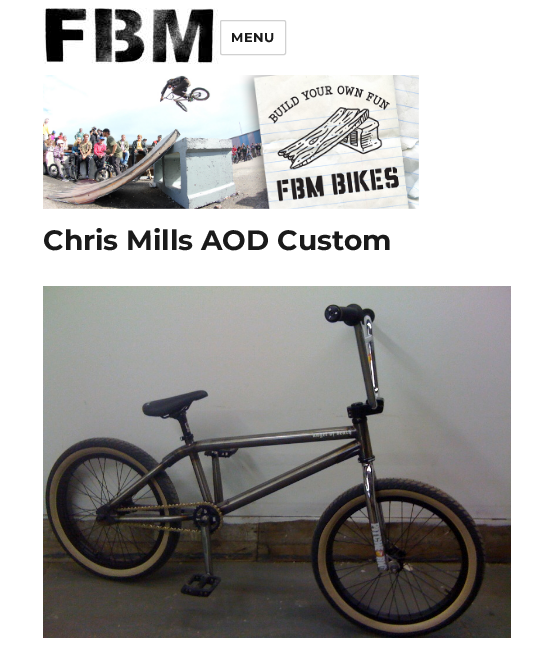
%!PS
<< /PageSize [554 651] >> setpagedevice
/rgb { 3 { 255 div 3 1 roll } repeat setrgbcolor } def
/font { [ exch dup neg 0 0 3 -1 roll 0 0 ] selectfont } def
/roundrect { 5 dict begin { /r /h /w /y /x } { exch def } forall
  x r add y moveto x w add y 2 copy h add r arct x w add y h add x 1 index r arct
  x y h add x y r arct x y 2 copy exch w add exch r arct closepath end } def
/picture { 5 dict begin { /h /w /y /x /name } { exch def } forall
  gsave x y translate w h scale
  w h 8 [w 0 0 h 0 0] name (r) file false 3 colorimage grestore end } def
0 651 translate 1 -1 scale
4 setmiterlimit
255 255 255 rgb
0 0 554 651 rectfill
(img/1.rgb) 43 8 176 56 picture
209 209 209 rgb
220.5 20.5 65 34 1.5 roundrect stroke
(img/2.rgb) 43 75 376 134 picture
(img/3.rgb) 43 286 468 352 picture
/Montserrat-Thin 13 font
26 26 26 rgb
231 42 moveto 0.5 0 (MENU) ashow
/Montserrat-Thin 28 font
43 250 moveto (Chris Mills AOD Custom) show
showpage
